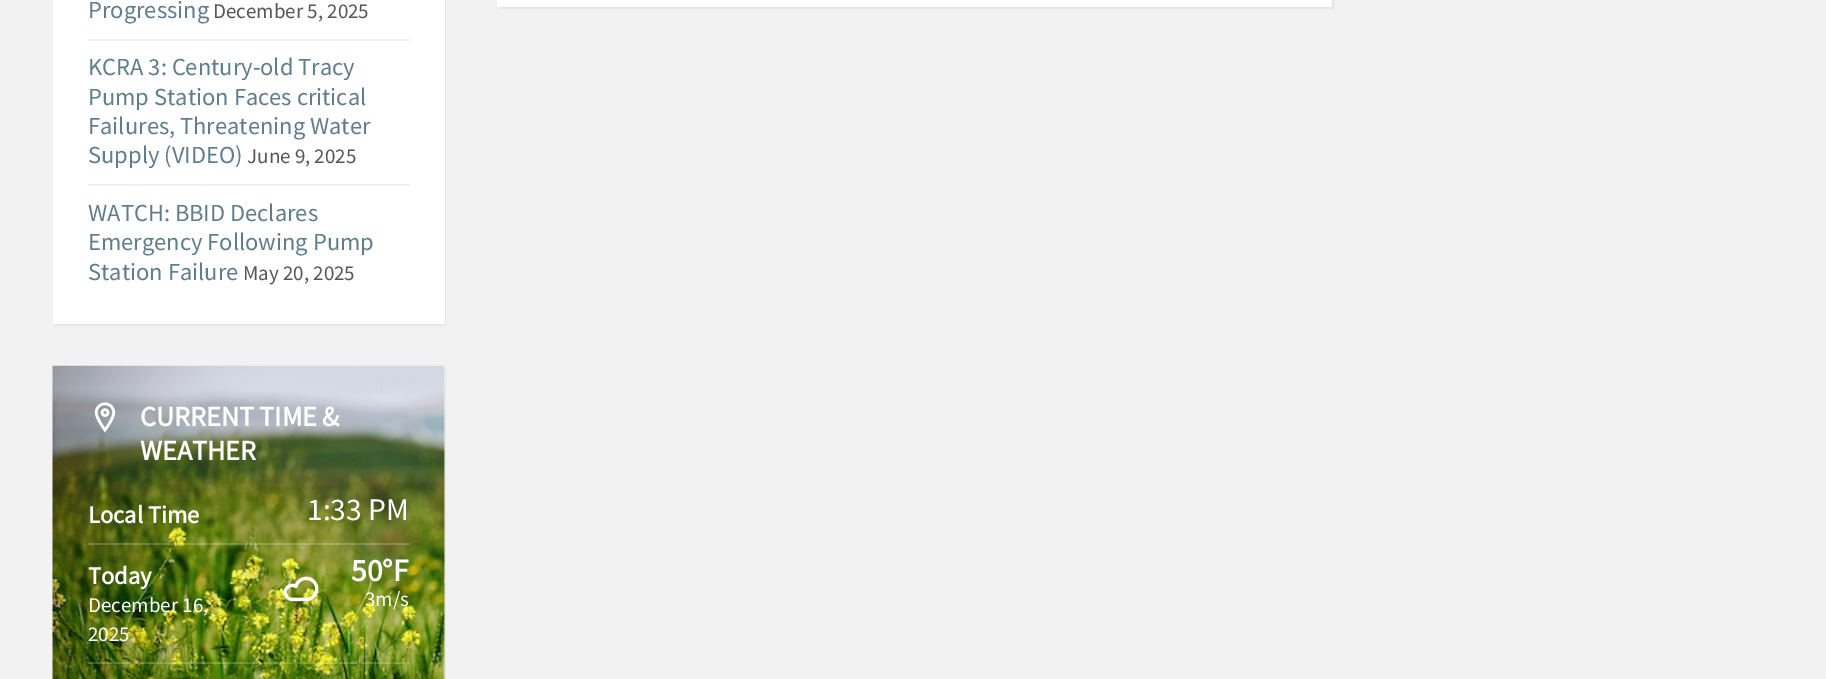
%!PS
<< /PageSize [1826 679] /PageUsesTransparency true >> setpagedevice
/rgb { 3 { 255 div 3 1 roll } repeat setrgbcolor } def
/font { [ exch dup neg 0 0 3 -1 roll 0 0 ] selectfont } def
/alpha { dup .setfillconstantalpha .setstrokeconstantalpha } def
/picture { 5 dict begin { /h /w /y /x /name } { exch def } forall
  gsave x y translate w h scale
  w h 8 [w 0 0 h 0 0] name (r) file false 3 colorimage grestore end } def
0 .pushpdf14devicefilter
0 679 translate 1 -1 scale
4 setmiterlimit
242 242 242 rgb
0 0 1826 679 rectfill
230 230 230 rgb
54 324 moveto 54 326 lineto 446 326 lineto 446 -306 lineto 444 -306 lineto 444 324 lineto closepath fill
[
  [53 0 392 324 255 255 255]
  [88 39 322 2 240 240 240]
  [88 184 322 2 240 240 240]
] { aload pop rgb rectfill } forall
230 230 230 rgb
54 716 moveto 54 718 lineto 446 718 lineto 446 368 lineto 444 368 lineto 444 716 lineto closepath fill
255 255 255 rgb
444 366 1 313 rectfill
(img/1.rgb) 52 365 393 314 picture
(img/2.rgb) 94 402 22 31 picture
0.2 alpha
88 543 322 2 rectfill
1 alpha
(img/3.rgb) 283 576 36 26 picture
0.2 alpha
88 662 322 2 rectfill
1 alpha
230 230 230 rgb
499 7 moveto 499 9 lineto 1334 9 lineto 1334 -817 lineto 1332 -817 lineto 1332 7 lineto closepath fill
255 255 255 rgb
497 0 835 7 rectfill
/SourceSansPro-Regular 24.5 font
96 125 139 rgb
88 18 moveto (Progressing) show
/SourceSansPro-Regular 21 font
86 86 86 rgb
213 18 moveto (December 5, 2025) show
/SourceSansPro-Regular 24.5 font
96 125 139 rgb
[
  [(KCRA 3: Century-old Tracy) 88 75]
  [(Pump Station Faces critical) 88 105]
  [(Failures, Threatening Water) 88 134]
  [(Supply \(VIDEO\)) 88 163]
] { aload pop moveto show } forall
/SourceSansPro-Regular 21 font
86 86 86 rgb
247 163 moveto (June 9, 2025) show
/SourceSansPro-Regular 24.5 font
96 125 139 rgb
[
  [(WATCH: BBID Declares) 88 221]
  [(Emergency Following Pump) 88 250]
  [(Station Failure) 88 280]
] { aload pop moveto show } forall
/SourceSansPro-Regular 21 font
86 86 86 rgb
243 280 moveto (May 20, 2025) show
/SourceSansPro-Bold 28 font
255 255 255 rgb
140 426 moveto (CURRENT TIME &) show
140 460 moveto (WEATHER) show
/SourceSansPro-Bold 24.5 font
88 523 moveto (Local Time) show
/SourceSansPro-Regular 31.5 font
307 520 moveto (1:33 PM) show
/SourceSansPro-Bold 24.5 font
88 584 moveto (Today) show
/SourceSansPro-Regular 21 font
88 612 moveto (December 16,) show
88 641 moveto (2025) show
/SourceSansPro-Bold 31.5 font
351 581 moveto (50°F) show
/SourceSansPro-Regular 21 font
365 606 moveto (3m/s) show
.poppdf14devicefilter showpage
